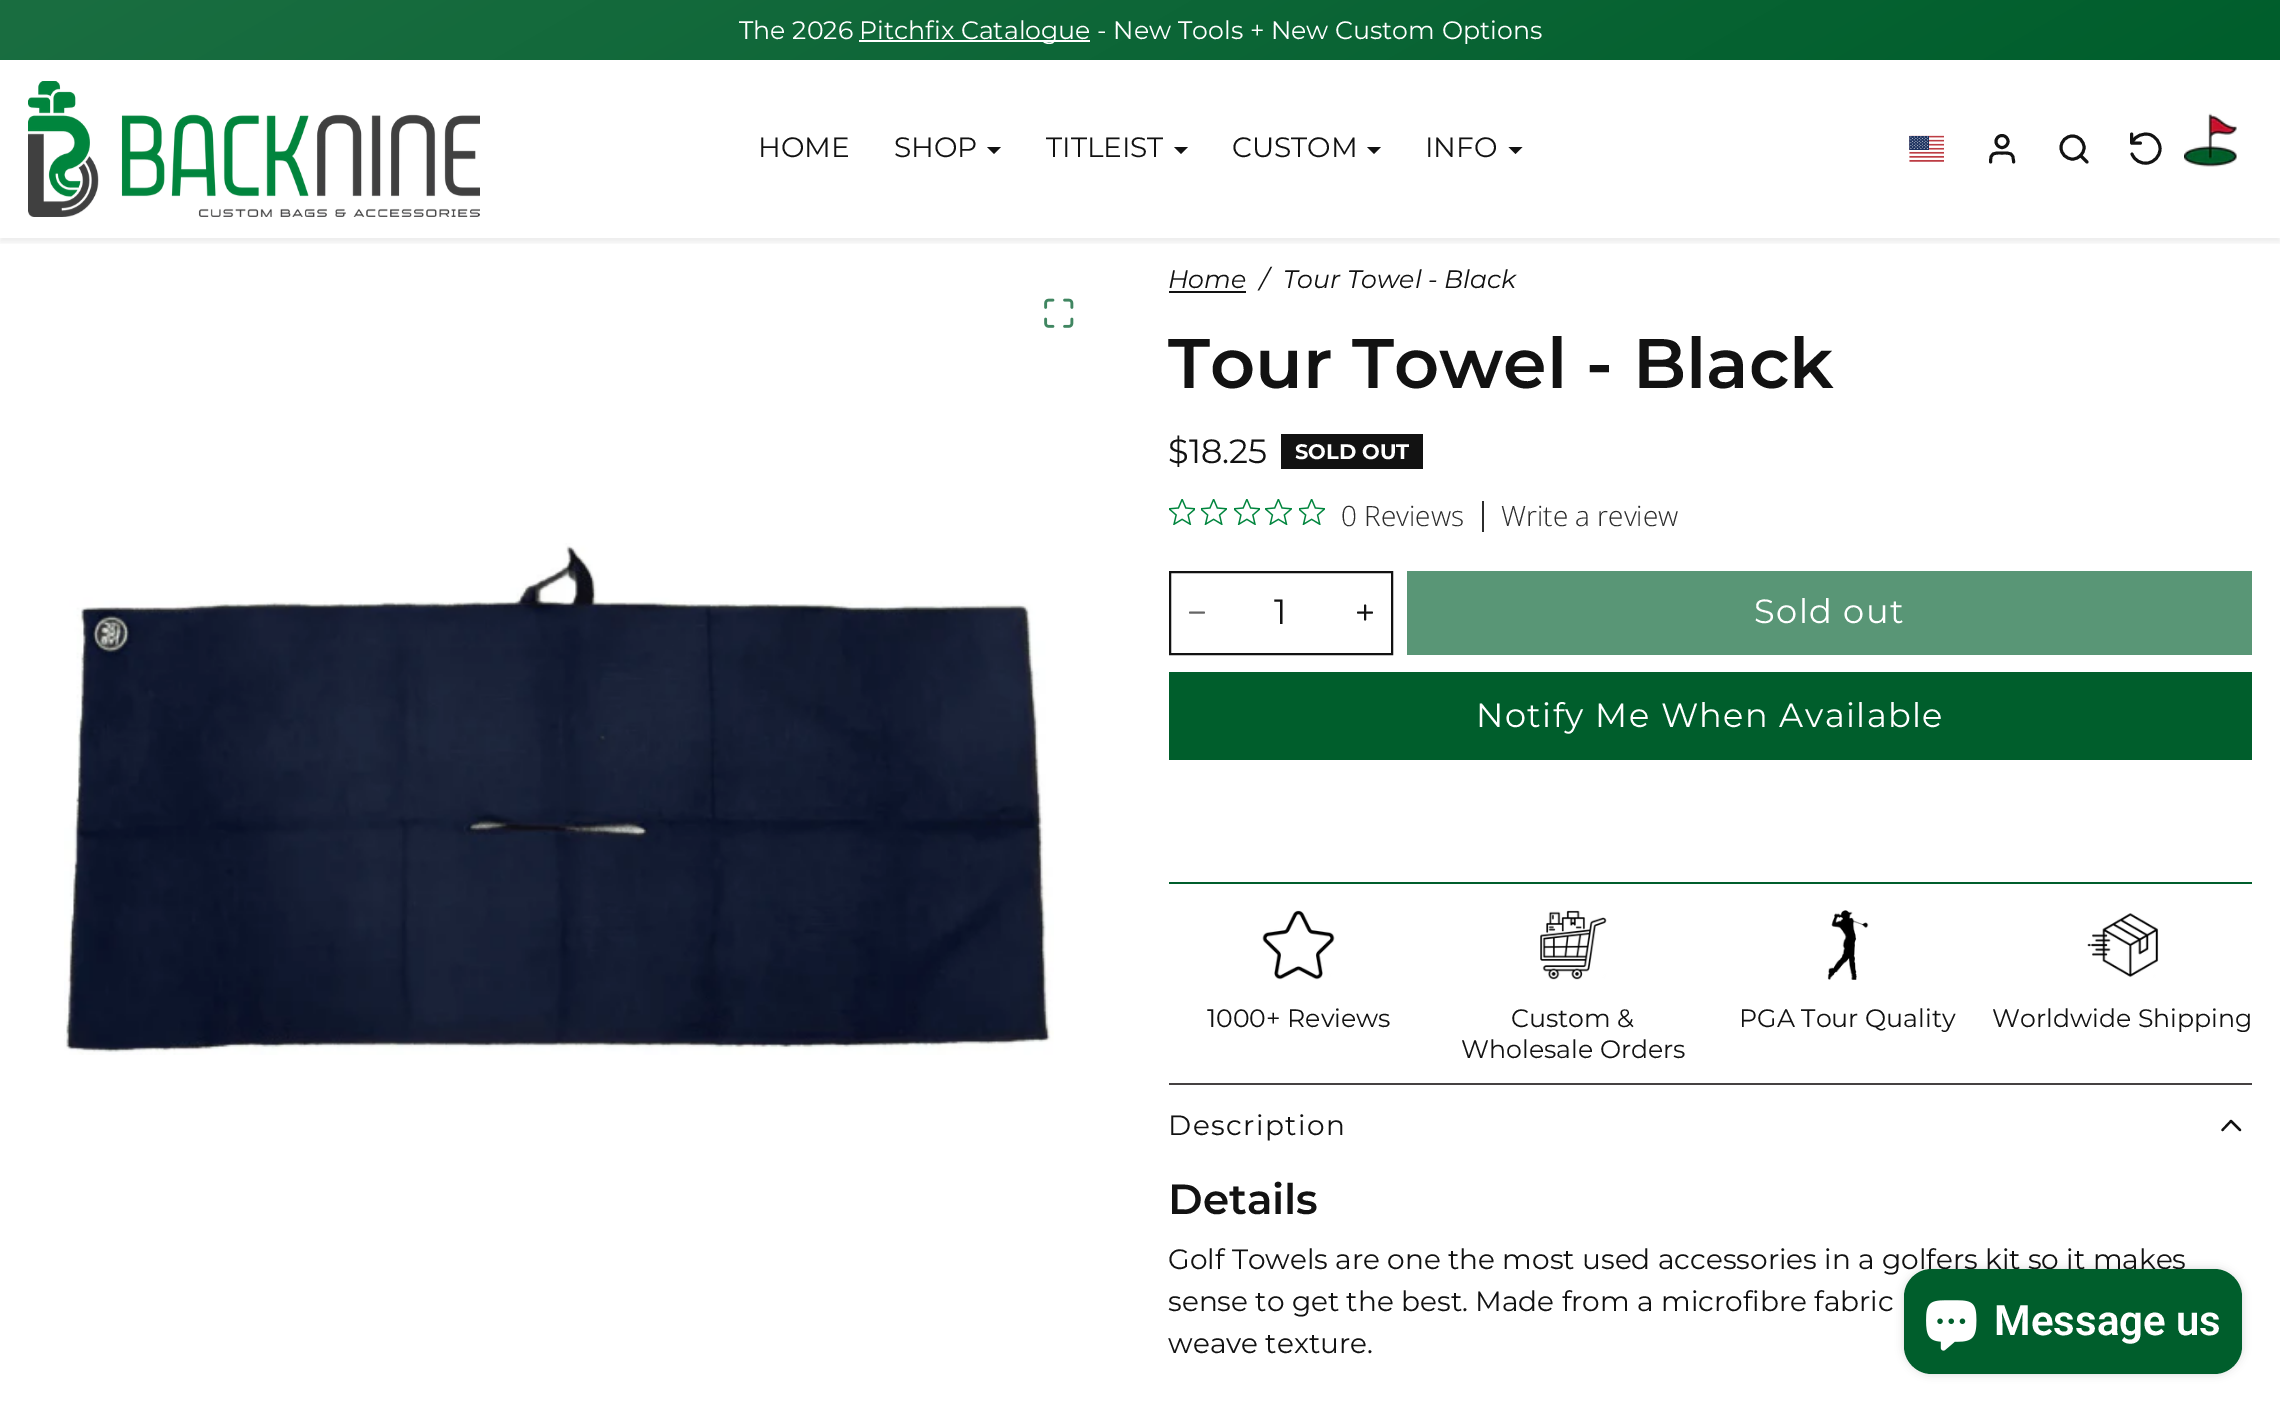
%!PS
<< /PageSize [2280 1409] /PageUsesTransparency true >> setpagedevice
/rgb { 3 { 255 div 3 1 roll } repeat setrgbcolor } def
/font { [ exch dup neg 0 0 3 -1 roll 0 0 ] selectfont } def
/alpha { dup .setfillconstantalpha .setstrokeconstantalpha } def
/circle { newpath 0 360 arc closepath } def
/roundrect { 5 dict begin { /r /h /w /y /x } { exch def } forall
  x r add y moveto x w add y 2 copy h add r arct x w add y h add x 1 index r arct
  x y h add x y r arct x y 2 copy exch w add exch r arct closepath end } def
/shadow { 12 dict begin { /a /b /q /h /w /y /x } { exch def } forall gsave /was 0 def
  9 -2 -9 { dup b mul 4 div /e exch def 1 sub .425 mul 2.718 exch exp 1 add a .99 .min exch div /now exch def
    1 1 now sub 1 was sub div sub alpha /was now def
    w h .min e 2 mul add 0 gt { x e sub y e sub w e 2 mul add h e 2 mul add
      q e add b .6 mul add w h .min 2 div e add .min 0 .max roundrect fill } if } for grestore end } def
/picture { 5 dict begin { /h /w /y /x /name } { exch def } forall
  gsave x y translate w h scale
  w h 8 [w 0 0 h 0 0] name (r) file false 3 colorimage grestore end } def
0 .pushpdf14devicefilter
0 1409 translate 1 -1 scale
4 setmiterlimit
255 255 255 rgb
0 0 2280 1409 rectfill
gsave 0 0 moveto 2280 0 lineto 2280 60 lineto 0 60 lineto closepath clip newpath
<< /ShadingType 2 /ColorSpace /DeviceRGB /Coords [842 -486 1438 546] /Extend [true true] /Function << /FunctionType 2 /Domain [0 1] /C0 [0.102 0.431 0.255] /C1 [0 0.369 0.173] /N 1 >> >> shfill grestore
859 40 231 2 rectfill
gsave
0 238 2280 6 rectclip
18 18 18 rgb
0 63 2280 179 0 3.5 0.07 shadow
grestore
(img/1.rgb) 28 81 452 136 picture
18 18 18 rgb
987 147 moveto 1001 147 lineto 994 154 lineto closepath fill
1174 147 moveto 1188 147 lineto 1181 154 lineto closepath fill
1367 147 moveto 1381 147 lineto 1374 154 lineto closepath fill
1508.5 147 moveto 1522.5 147 lineto 1515.5 154 lineto closepath fill
(img/2.rgb) 1909 135 35 27 picture
2.9 setlinewidth
1 setlinecap
1 setlinejoin
2013.5 162 moveto 2013.5 152.5 2010.5 153 2002 153 curveto 1993.5 153 1990.5 152.5 1990.5 162 curveto stroke
0 setlinecap
0 setlinejoin
2002 141.5 6 circle stroke
2072.5 147.5 11.5 circle stroke
1 setlinecap
1 setlinejoin
2087 162 moveto 2080.5 155.5 lineto stroke
2131.5 134 moveto 2131.5 143 lineto 2140.5 143 lineto 2132 154 moveto 2134.5 160.5 2141 164 2147.5 163 curveto 2154.5 162 2159.5 156.5 2160 149.5 curveto 2160.5 143 2156 136.5 2149.5 134.5 curveto 2143 133 2136 135.5 2132.5 141.5 curveto stroke
(img/3.rgb) 2184 113 53 54 picture
(img/4.rgb) 1044 298 30 30 picture
(img/5.rgb) 64 543 990 512 picture
1169 291 77 2 rectfill
1281 434 142 35 rectfill
(img/6.rgb) 1169 499 26 26 picture
(img/7.rgb) 1201 499 26 26 picture
(img/8.rgb) 1234 499 26 26 picture
(img/9.rgb) 1265 499 27 26 picture
(img/7.rgb) 1299 499 26 26 picture
44 44 44 rgb
1482 501 2 31 rectfill
18 18 18 rgb
2 setlinewidth
0 setlinecap
0 setlinejoin
1170 572 222 82 rectstroke
101 101 101 rgb
1 setlinecap
1 setlinejoin
1190 612.5 moveto 1204 612.5 lineto stroke
18 18 18 rgb
1365 605.5 moveto 1365 619.5 lineto 1358 612.5 moveto 1372 612.5 lineto stroke
[
  [1407 571 845 84 89 150 118]
  [1169 672 1083 88 0 94 44]
  [1169 882 1083 2 0 94 44]
] { aload pop rgb rectfill } forall
(img/10.rgb) 1262 910 73 70 picture
(img/11.rgb) 1540 910 67 70 picture
(img/12.rgb) 1827 910 42 70 picture
(img/13.rgb) 2087 913 72 65 picture
69 65 66 rgb
1169 1083 1083 2 rectfill
18 18 18 rgb
2.2 setlinewidth
2240 1130 moveto 2231 1121 lineto 2222.5 1130 lineto stroke
0 0 0 rgb
1904 1269 338 105 28 4.5 0.15 shadow
/Montserrat-Regular 25.2 font
255 255 255 rgb
739 39 moveto (The 2026) show
859 39 moveto (Pitchfix Catalogue - New Tools + New Custom Options) show
/Montserrat-Regular 28 font
18 18 18 rgb
[
  [(HOME) 758 157]
  [(SHOP) 894 157]
  [(TITLEIST) 1046 157]
  [(CUSTOM) 1232 157]
  [(INFO) 1425 157]
] { aload pop moveto show } forall
/Montserrat-Italic 25.2 font
[
  [(Home) 1168 288]
  [(/) 1260 288]
  [(Tour Towel - Black) 1283 288]
] { aload pop moveto show } forall
/Montserrat-SemiBold 70 font
1168 388 moveto (Tour Towel - Black) show
/Montserrat-Regular 33.6 font
1168 463 moveto ($18.25) show
/Montserrat-Bold 21 font
255 255 255 rgb
1295 459 moveto (SOLD OUT) show
/OpenSans-Light 28 font
44 44 44 rgb
1341 526 moveto (0 Reviews) show
1501 526 moveto (Write a review) show
/Montserrat-Regular 35 font
18 18 18 rgb
1274 624 moveto (1) show
/Montserrat-Regular 33.6 font
255 255 255 rgb
1754 623 moveto 1.4 0 (Sold out) ashow
1476 727 moveto 1.4 0 (Notify Me When Available) ashow
/Montserrat-Regular 25.2 font
18 18 18 rgb
[
  [(1000+ Reviews) 1207 1027]
  [(Custom &) 1511 1027]
  [(Wholesale Orders) 1461 1058]
  [(PGA Tour Quality) 1739 1027]
  [(Worldwide Shipping) 1992 1027]
] { aload pop moveto show } forall
/Montserrat-Regular 28 font
1168 1135 moveto 1.4 0 (Description) ashow
/Montserrat-SemiBold 42 font
1168 1214 moveto (Details) show
/Montserrat-Regular 28 font
[
  [(Golf Towels are one the most used accessories in a golfers kit so it makes) 1168 1269]
  [(sense to get the best. Made from a microfibre fabric) 1168 1311]
  [(weave texture.) 1168 1353]
] { aload pop moveto show } forall
0 94 44 rgb
1904 1269 338 105 28 roundrect fill
(img/14.rgb) 1926 1300 51 51 picture
/Roboto-SemiBold 42 font
255 255 255 rgb
1994 1335 moveto (Message us) show
.poppdf14devicefilter showpage
